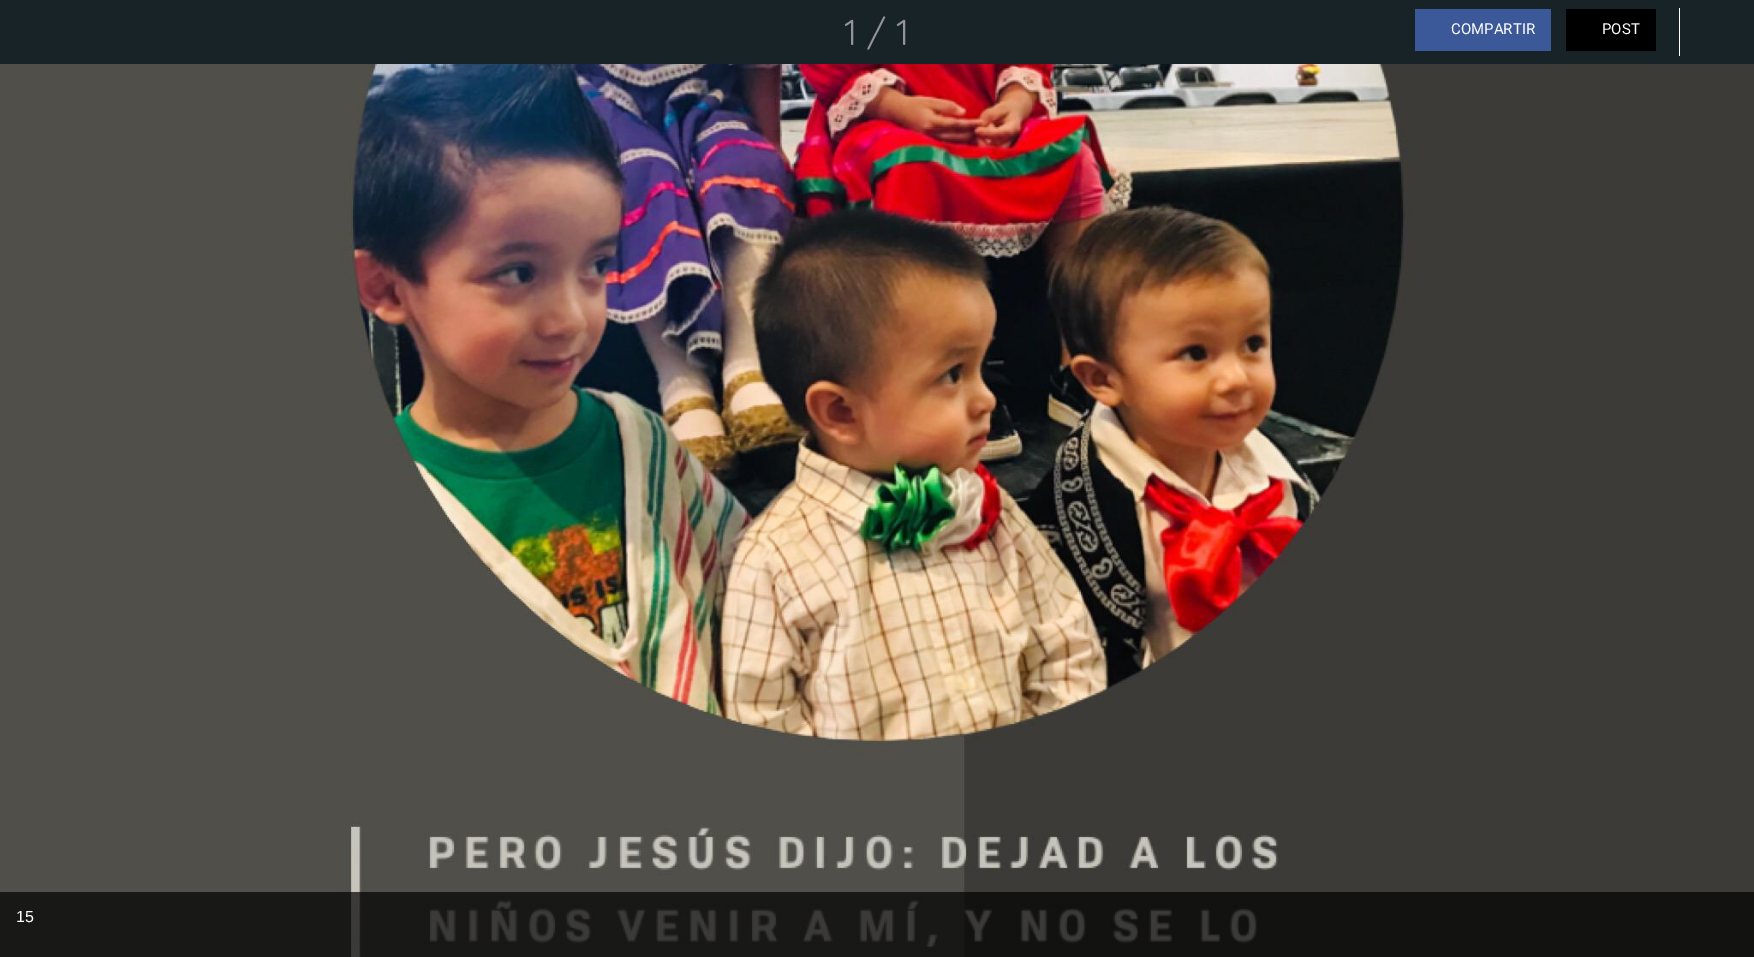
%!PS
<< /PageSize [1754 957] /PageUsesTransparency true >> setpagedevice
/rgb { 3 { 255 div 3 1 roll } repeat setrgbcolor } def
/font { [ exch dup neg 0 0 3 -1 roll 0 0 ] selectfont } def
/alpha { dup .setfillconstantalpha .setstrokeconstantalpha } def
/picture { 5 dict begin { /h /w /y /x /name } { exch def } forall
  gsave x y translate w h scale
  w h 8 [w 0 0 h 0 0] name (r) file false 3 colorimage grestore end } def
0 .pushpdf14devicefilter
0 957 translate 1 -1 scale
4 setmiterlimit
255 255 255 rgb
0 0 1754 957 rectfill
[
  [0 0 1754 64 24 35 39]
  [1415 9 136 42 59 89 153]
  [1679 8 1 48 255 255 255]
  [1566 9 90 42 0 0 0]
] { aload pop rgb rectfill } forall
(img/1.rgb) 0 64 1754 893 picture
0.7 alpha
0 892 1754 65 rectfill
/Quicksand-Regular 36 font
1 alpha
146 148 151 rgb
844 45 moveto (1 / 1) show
/Roboto-Regular 15 font
255 255 255 rgb
1451 34 moveto (COMPARTIR) show
1602 34 moveto (POST) show
/LiberationSans-Regular 16 font
16 922 moveto (15) show
.poppdf14devicefilter showpage
